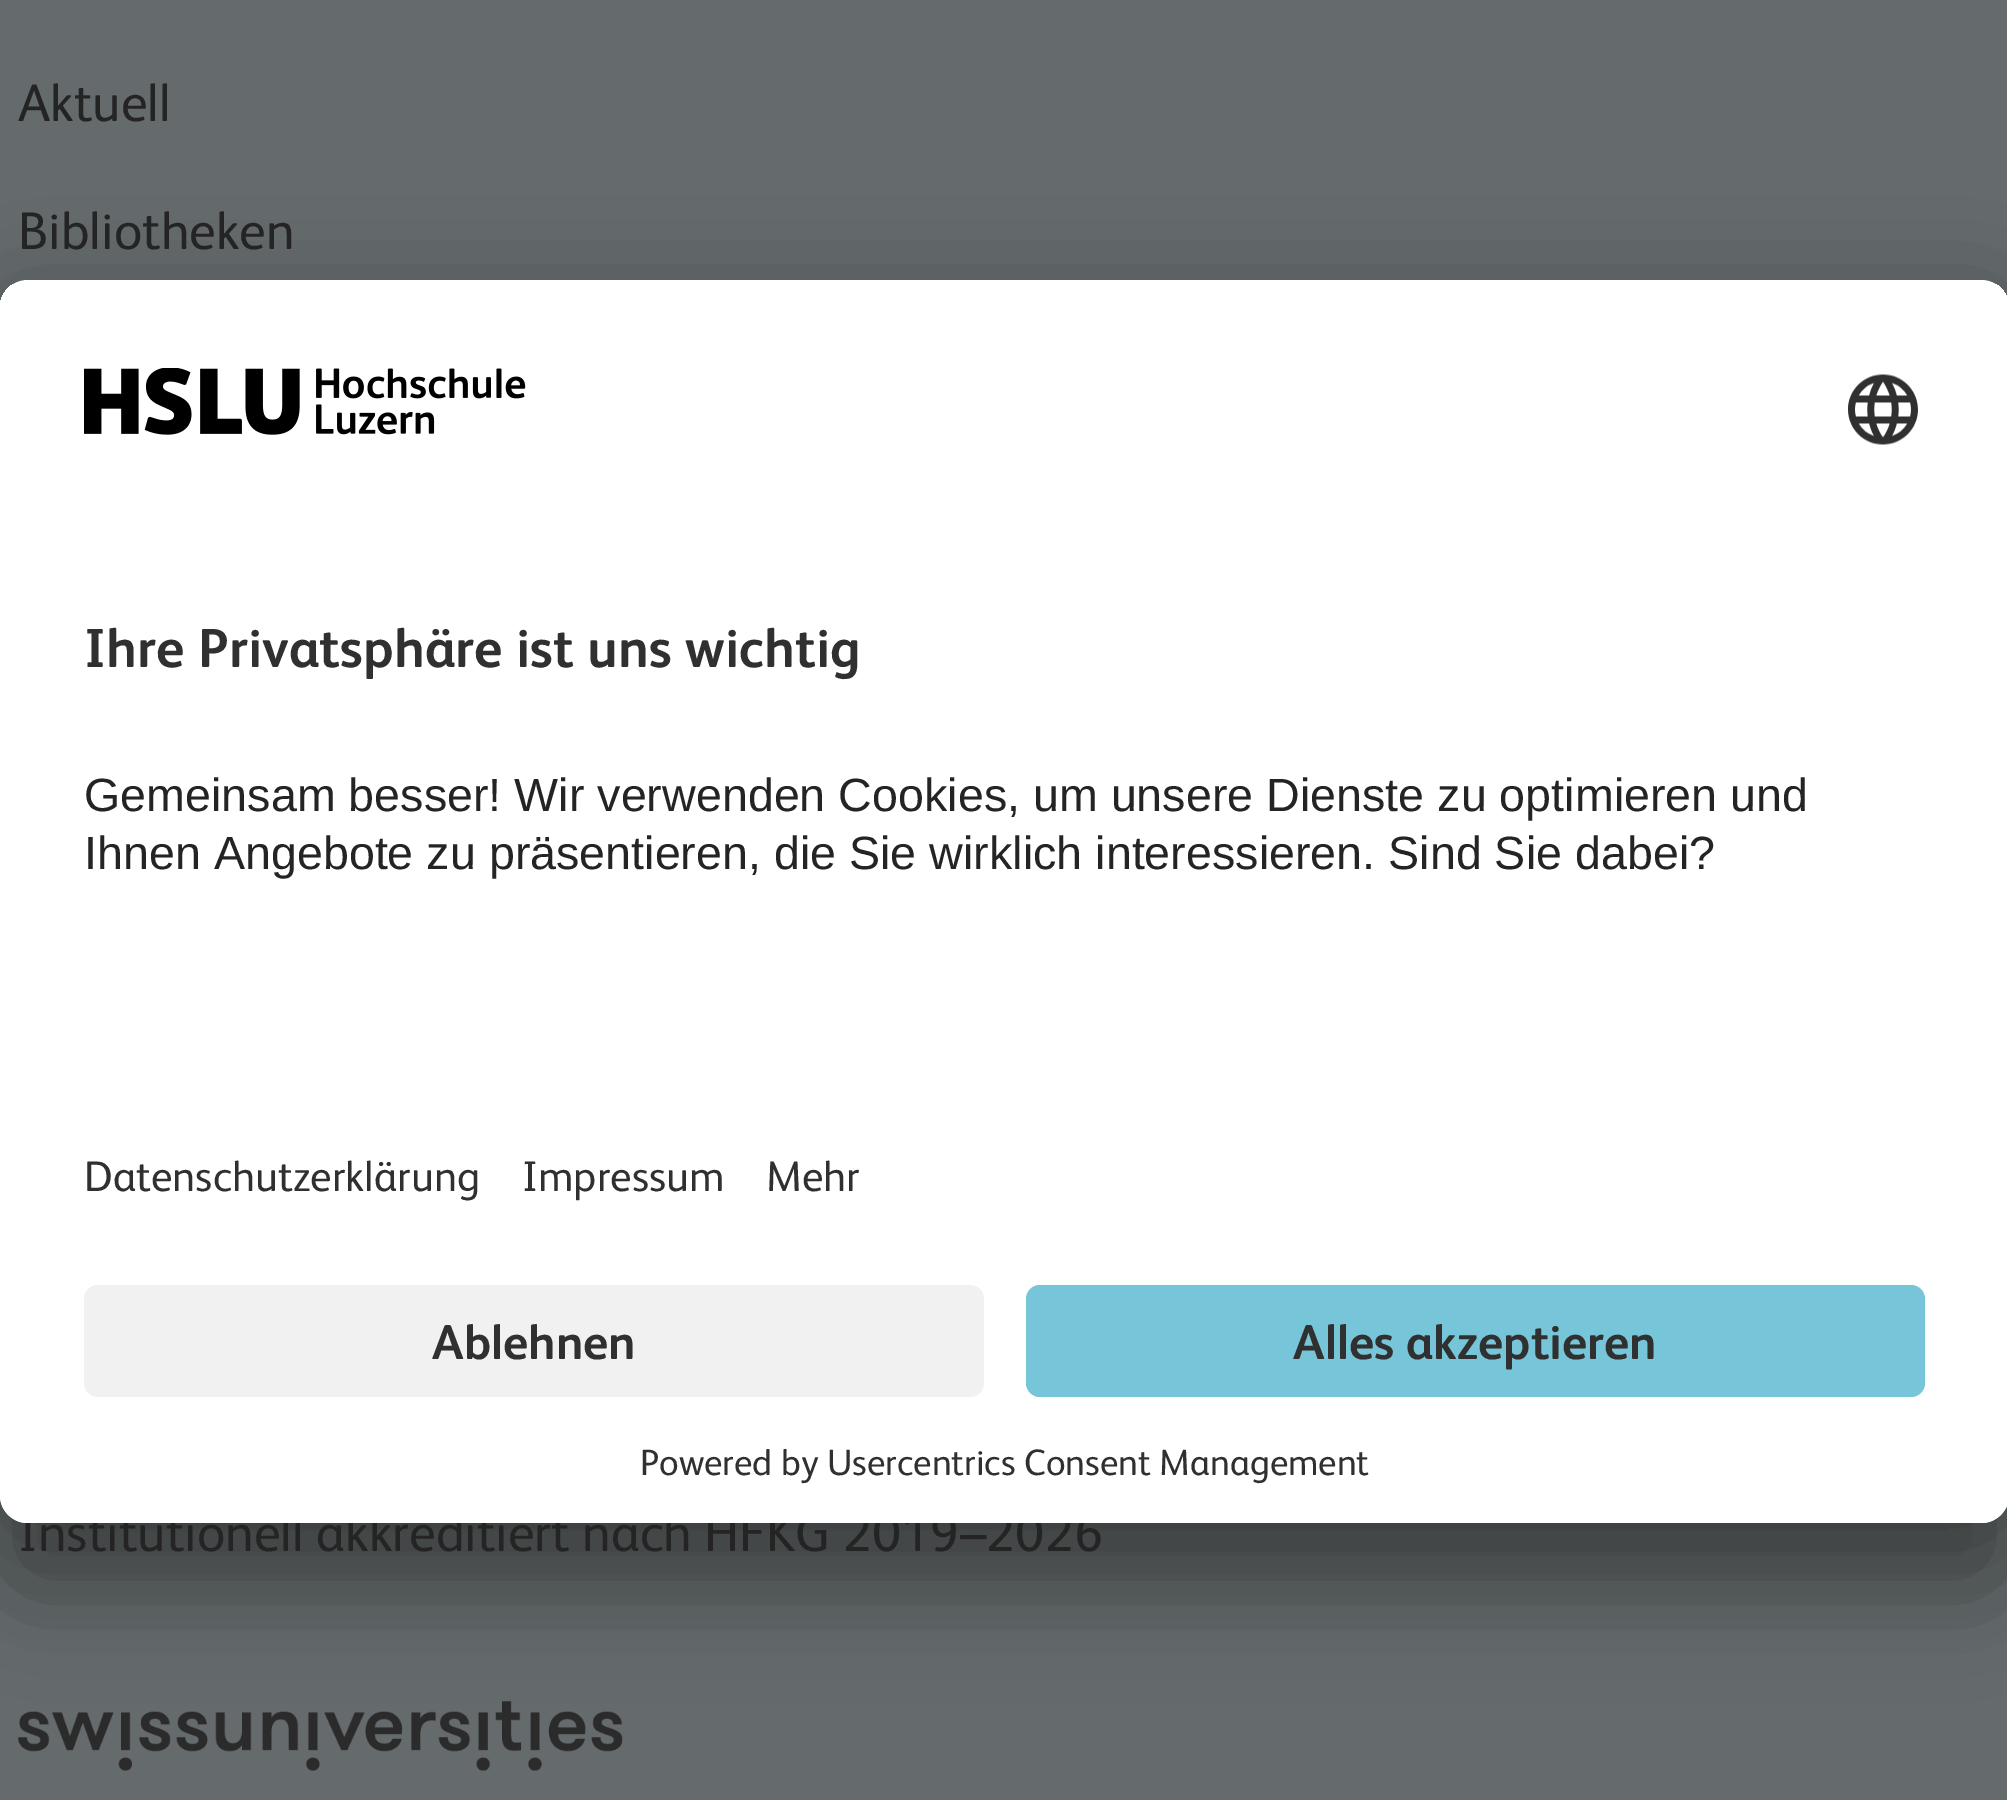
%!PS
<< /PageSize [2007 1800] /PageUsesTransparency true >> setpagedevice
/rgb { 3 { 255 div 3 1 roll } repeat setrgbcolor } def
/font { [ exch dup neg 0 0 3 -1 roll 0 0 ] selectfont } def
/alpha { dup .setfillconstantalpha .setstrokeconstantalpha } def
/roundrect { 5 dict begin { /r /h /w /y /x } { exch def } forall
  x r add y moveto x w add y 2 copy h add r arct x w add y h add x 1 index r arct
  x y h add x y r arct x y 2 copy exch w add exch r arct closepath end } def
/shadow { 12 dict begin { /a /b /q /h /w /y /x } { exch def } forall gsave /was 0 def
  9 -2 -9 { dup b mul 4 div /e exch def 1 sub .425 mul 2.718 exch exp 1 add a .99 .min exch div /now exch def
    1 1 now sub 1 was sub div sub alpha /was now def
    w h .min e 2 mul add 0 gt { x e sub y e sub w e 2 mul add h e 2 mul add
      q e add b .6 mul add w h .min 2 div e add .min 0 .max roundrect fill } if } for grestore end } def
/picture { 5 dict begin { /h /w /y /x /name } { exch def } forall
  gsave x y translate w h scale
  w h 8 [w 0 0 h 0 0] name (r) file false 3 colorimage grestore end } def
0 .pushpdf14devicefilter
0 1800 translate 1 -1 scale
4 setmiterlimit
101 107 109 rgb
0 0 2007 1800 rectfill
(img/1.rgb) 18 1701 605 70 picture
0 0 0 rgb
0 350 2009 1243 28 49 0.3 shadow
0 298 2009 1242 28 45.5 0.22 shadow
/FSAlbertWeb-Regular 53.2 font
36 36 36 rgb
[
  [(Aktuell) 18 121]
  [(Bibliotheken) 18 249]
  [(Institutionell akkreditiert nach HFKG 2019–2026) 18 1551]
] { aload pop moveto show } forall
255 255 255 rgb
0 280 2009 1243 28 roundrect fill
gsave
0 280 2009 1243 28 roundrect clip newpath
28 280 moveto 1981 280 lineto 1996.5 280 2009 292.5 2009 308 curveto 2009 1257 lineto 0 1257 lineto 0 308 lineto 0 292.5 12.5 280 28 280 curveto closepath clip newpath
0 284 2007 973 rectfill
grestore
(img/2.rgb) 84 368 442 67 picture
(img/3.rgb) 1848 374 70 71 picture
/FSAlbertWeb-Bold 55.1 font
48 48 48 rgb
84 667 moveto (Ihre Privatsphäre ist uns wichtig) show
/LiberationSans-Regular 46.65 font
36 36 36 rgb
84 811 moveto (Gemeinsam besser! Wir verwenden Cookies, um unsere Dienste zu optimieren und) show
84 869 moveto (Ihnen Angebote zu präsentieren, die Sie wirklich interessieren. Sind Sie dabei?) show
/FSAlbertWeb-Regular 42.9 font
48 48 48 rgb
[
  [(Datenschutzerklärung) 84 1191]
  [(Impressum) 522 1191]
  [(Mehr) 766 1191]
] { aload pop moveto show } forall
255 255 255 rgb
0 1257 moveto 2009 1257 lineto 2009 1495 lineto 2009 1510.5 1996.5 1523 1981 1523 curveto 28 1523 lineto 12.5 1523 0 1510.5 0 1495 curveto closepath fill
241 241 241 rgb
84 1285 900 112 14 roundrect fill
/FSAlbertWeb-Bold 49 font
48 48 48 rgb
432 1359 moveto (Ablehnen) show
119 197 216 rgb
1026 1285 899 112 14 roundrect fill
48 48 48 rgb
1293 1359 moveto (Alles akzeptieren) show
/FSAlbertWeb-Regular 36.75 font
640 1475 moveto (Powered by Usercentrics Consent Management) show
.poppdf14devicefilter showpage
